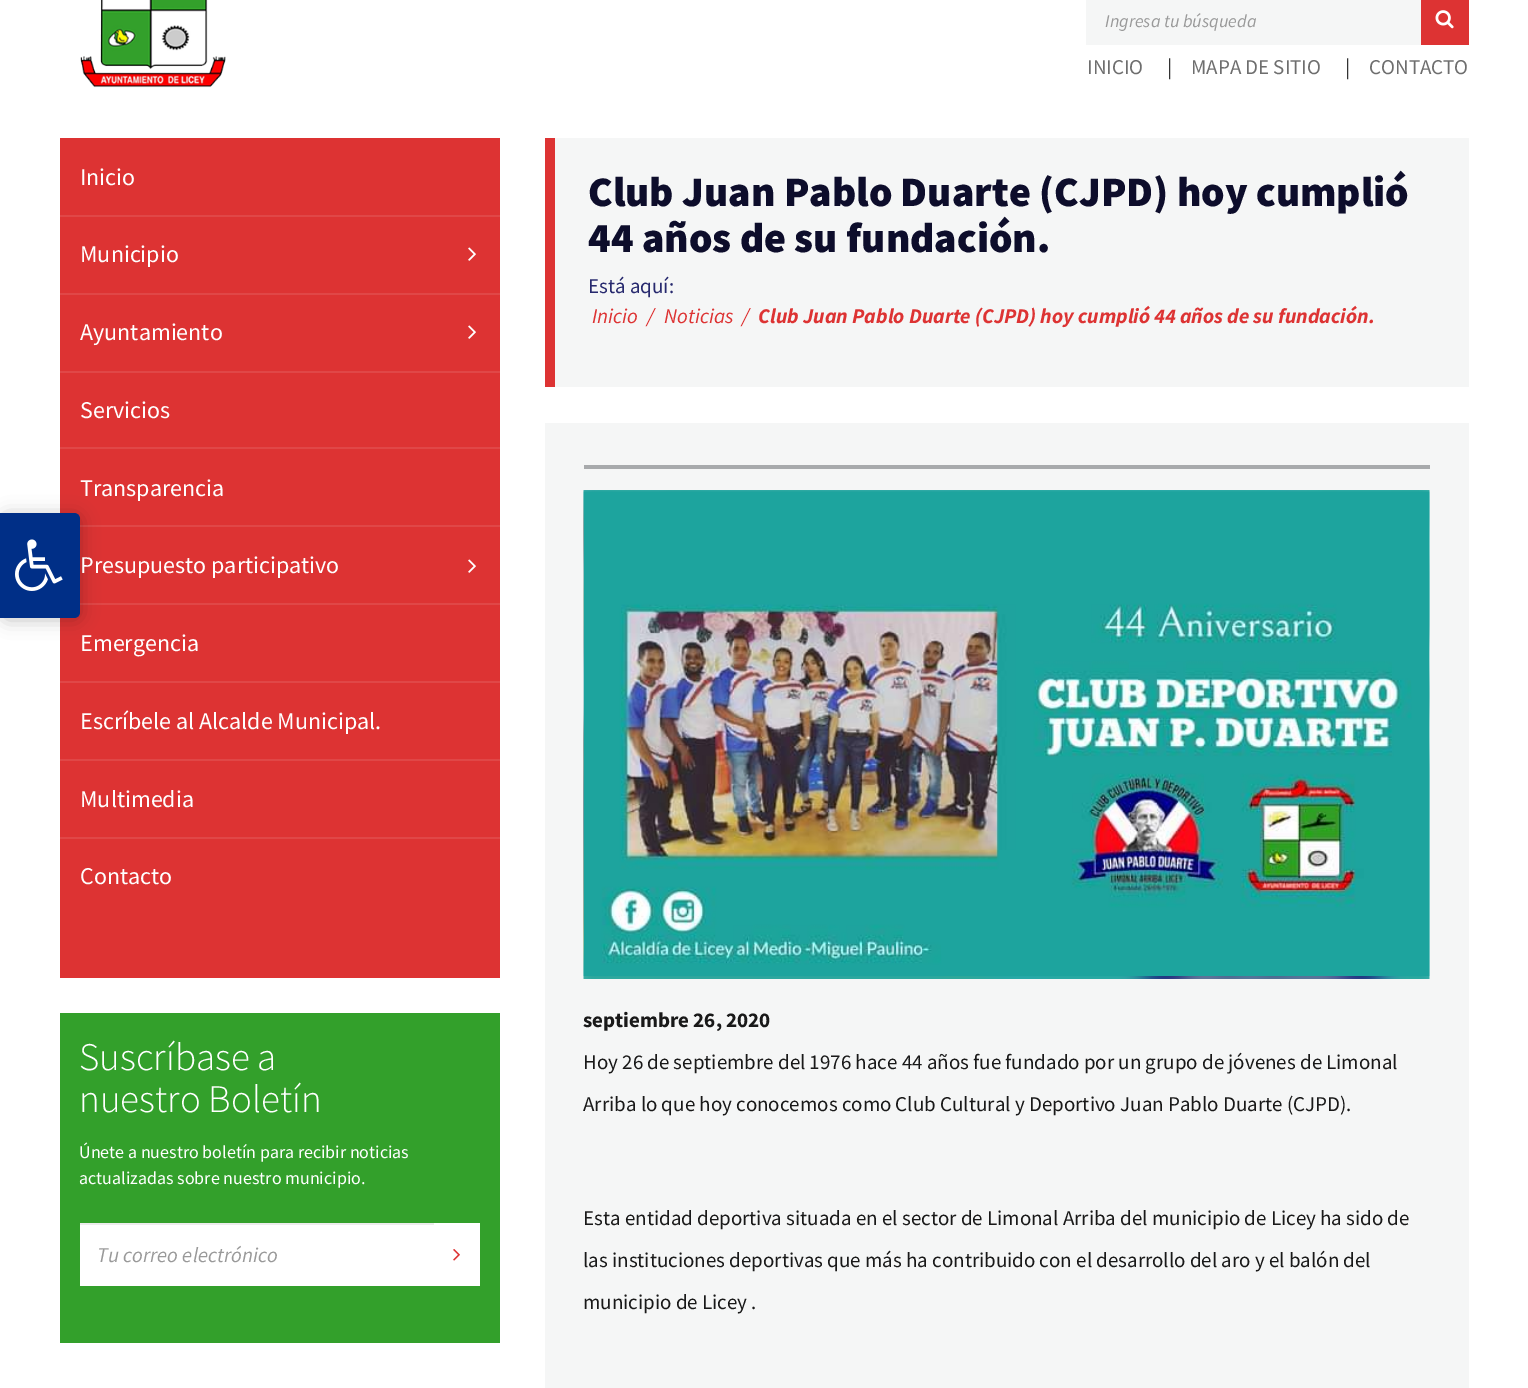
%!PS
<< /PageSize [1528 1388] /PageUsesTransparency true >> setpagedevice
/rgb { 3 { 255 div 3 1 roll } repeat setrgbcolor } def
/font { [ exch dup neg 0 0 3 -1 roll 0 0 ] selectfont } def
/alpha { dup .setfillconstantalpha .setstrokeconstantalpha } def
/roundrect { 5 dict begin { /r /h /w /y /x } { exch def } forall
  x r add y moveto x w add y 2 copy h add r arct x w add y h add x 1 index r arct
  x y h add x y r arct x y 2 copy exch w add exch r arct closepath end } def
/shadow { 12 dict begin { /a /b /q /h /w /y /x } { exch def } forall gsave /was 0 def
  9 -2 -9 { dup b mul 4 div /e exch def 1 sub .425 mul 2.718 exch exp 1 add a .99 .min exch div /now exch def
    1 1 now sub 1 was sub div sub alpha /was now def
    w h .min e 2 mul add 0 gt { x e sub y e sub w e 2 mul add h e 2 mul add
      q e add b .6 mul add w h .min 2 div e add .min 0 .max roundrect fill } if } for grestore end } def
/picture { 5 dict begin { /h /w /y /x /name } { exch def } forall
  gsave x y translate w h scale
  w h 8 [w 0 0 h 0 0] name (r) file false 3 colorimage grestore end } def
0 .pushpdf14devicefilter
0 1388 translate 1 -1 scale
4 setmiterlimit
255 255 255 rgb
0 0 1528 1388 rectfill
[
  [60 138 440 840 221 51 51]
  [80 525 420 2 224 71 71]
  [80 603 420 2 224 71 71]
] { aload pop rgb rectfill } forall
0 0 0 rgb
2 515 79 105 6 9 0.23 shadow
0 47 135 rgb
0 513 moveto 74 513 lineto 77.5 513 80 515.5 80 519 curveto 80 612 lineto 80 615.5 77.5 618 74 618 curveto 0 618 lineto closepath fill
(img/1.rgb) 15 539 48 52 picture
(img/2.rgb) 80 0 146 88 picture
245 246 246 rgb
1086 0 335 45 rectfill
221 51 51 rgb
1421 0 48 45 rectfill
(img/3.rgb) 1435 10 19 19 picture
224 71 71 rgb
60 215 440 2 rectfill
60 293 440 2 rectfill
(img/4.rgb) 468 247 8 14 picture
60 371 440 2 rectfill
(img/4.rgb) 468 325 8 14 picture
60 447 440 2 rectfill
(img/4.rgb) 468 559 8 14 picture
[
  [60 681 440 2 224 71 71]
  [60 759 440 2 224 71 71]
  [60 837 440 2 224 71 71]
  [60 1013 440 330 51 160 43]
  [80 1225 354 61 255 255 255]
  [80 1223 355 2 236 236 236]
  [434 1223 46 63 255 255 255]
] { aload pop rgb rectfill } forall
(img/5.rgb) 453 1249 7 12 picture
[
  [555 138 914 249 245 246 246]
  [545 138 10 249 221 51 51]
  [545 423 924 965 245 246 246]
  [584 465 846 4 168 170 172]
] { aload pop rgb rectfill } forall
(img/6.rgb) 583 490 847 489 picture
(img/7.rgb) 583 491 847 485 picture
/SourceSansPro-Italic 18 font
153 153 153 rgb
1105 27 moveto (Ingresa tu búsqueda) show
/SourceSansPro-Regular 21 font
110 110 110 rgb
1087 74 moveto (INICIO) show
51 51 51 rgb
1167 74 moveto (|) show
110 110 110 rgb
1191 74 moveto (MAPA DE SITIO) show
51 51 51 rgb
1345 74 moveto (|) show
110 110 110 rgb
1369 74 moveto (CONTACTO) show
/SourceSansPro-Regular 24 font
255 255 255 rgb
[
  [(Inicio) 80 185]
  [(Municipio) 80 262]
  [(Ayuntamiento) 80 340]
  [(Servicios) 80 418]
  [(Transparencia) 80 496]
  [(Presupuesto participativo) 80 573]
  [(Emergencia) 80 651]
  [(Escríbele al Alcalde Municipal.) 80 729]
  [(Multimedia) 80 807]
  [(Contacto) 80 884]
] { aload pop moveto show } forall
/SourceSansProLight-Light 39 font
79 1070 moveto (Suscríbase a) show
79 1112 moveto (nuestro Boletín) show
/SourceSansPro-Regular 18 font
79 1158 moveto (Únete a nuestro boletín para recibir noticias) show
79 1184 moveto (actualizadas sobre nuestro municipio.) show
/SourceSansPro-Italic 21 font
153 153 153 rgb
97 1262 moveto (Tu correo electrónico) show
/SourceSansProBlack-Black 42 font
13 13 43 rgb
588 206 moveto (Club Juan Pablo Duarte \(CJPD\) hoy cumplió) show
588 252 moveto (44 años de su fundación.) show
/SourceSansPro-Regular 21 font
39 41 110 rgb
588 293 moveto (Está aquí:) show
/SourceSansPro-Italic 21 font
221 51 51 rgb
[
  [(Inicio) 592 323]
  [(/) 647 323]
  [(Noticias) 664 323]
  [(/) 742 323]
] { aload pop moveto show } forall
/SourceSansPro-BoldItalic 21 font
758 323 moveto (Club Juan Pablo Duarte \(CJPD\) hoy cumplió 44 años de su fundación.) show
/SourceSansPro-Bold 21 font
25 25 25 rgb
583 1027 moveto (septiembre 26, 2020) show
/SourceSansPro-Regular 21 font
[
  [(Hoy 26 de septiembre del 1976 hace 44 años fue fundado por un grupo de jóvenes de Limonal) 583 1069]
  [(Arriba lo que hoy conocemos como Club Cultural y Deportivo Juan Pablo Duarte \(CJPD\).) 583 1111]
  [(Esta entidad deportiva situada en el sector de Limonal Arriba del municipio de Licey ha sido de) 583 1225]
  [(las instituciones deportivas que más ha contribuido con el desarrollo del aro y el balón del) 583 1267]
  [(municipio de Licey .) 583 1309]
] { aload pop moveto show } forall
.poppdf14devicefilter showpage
